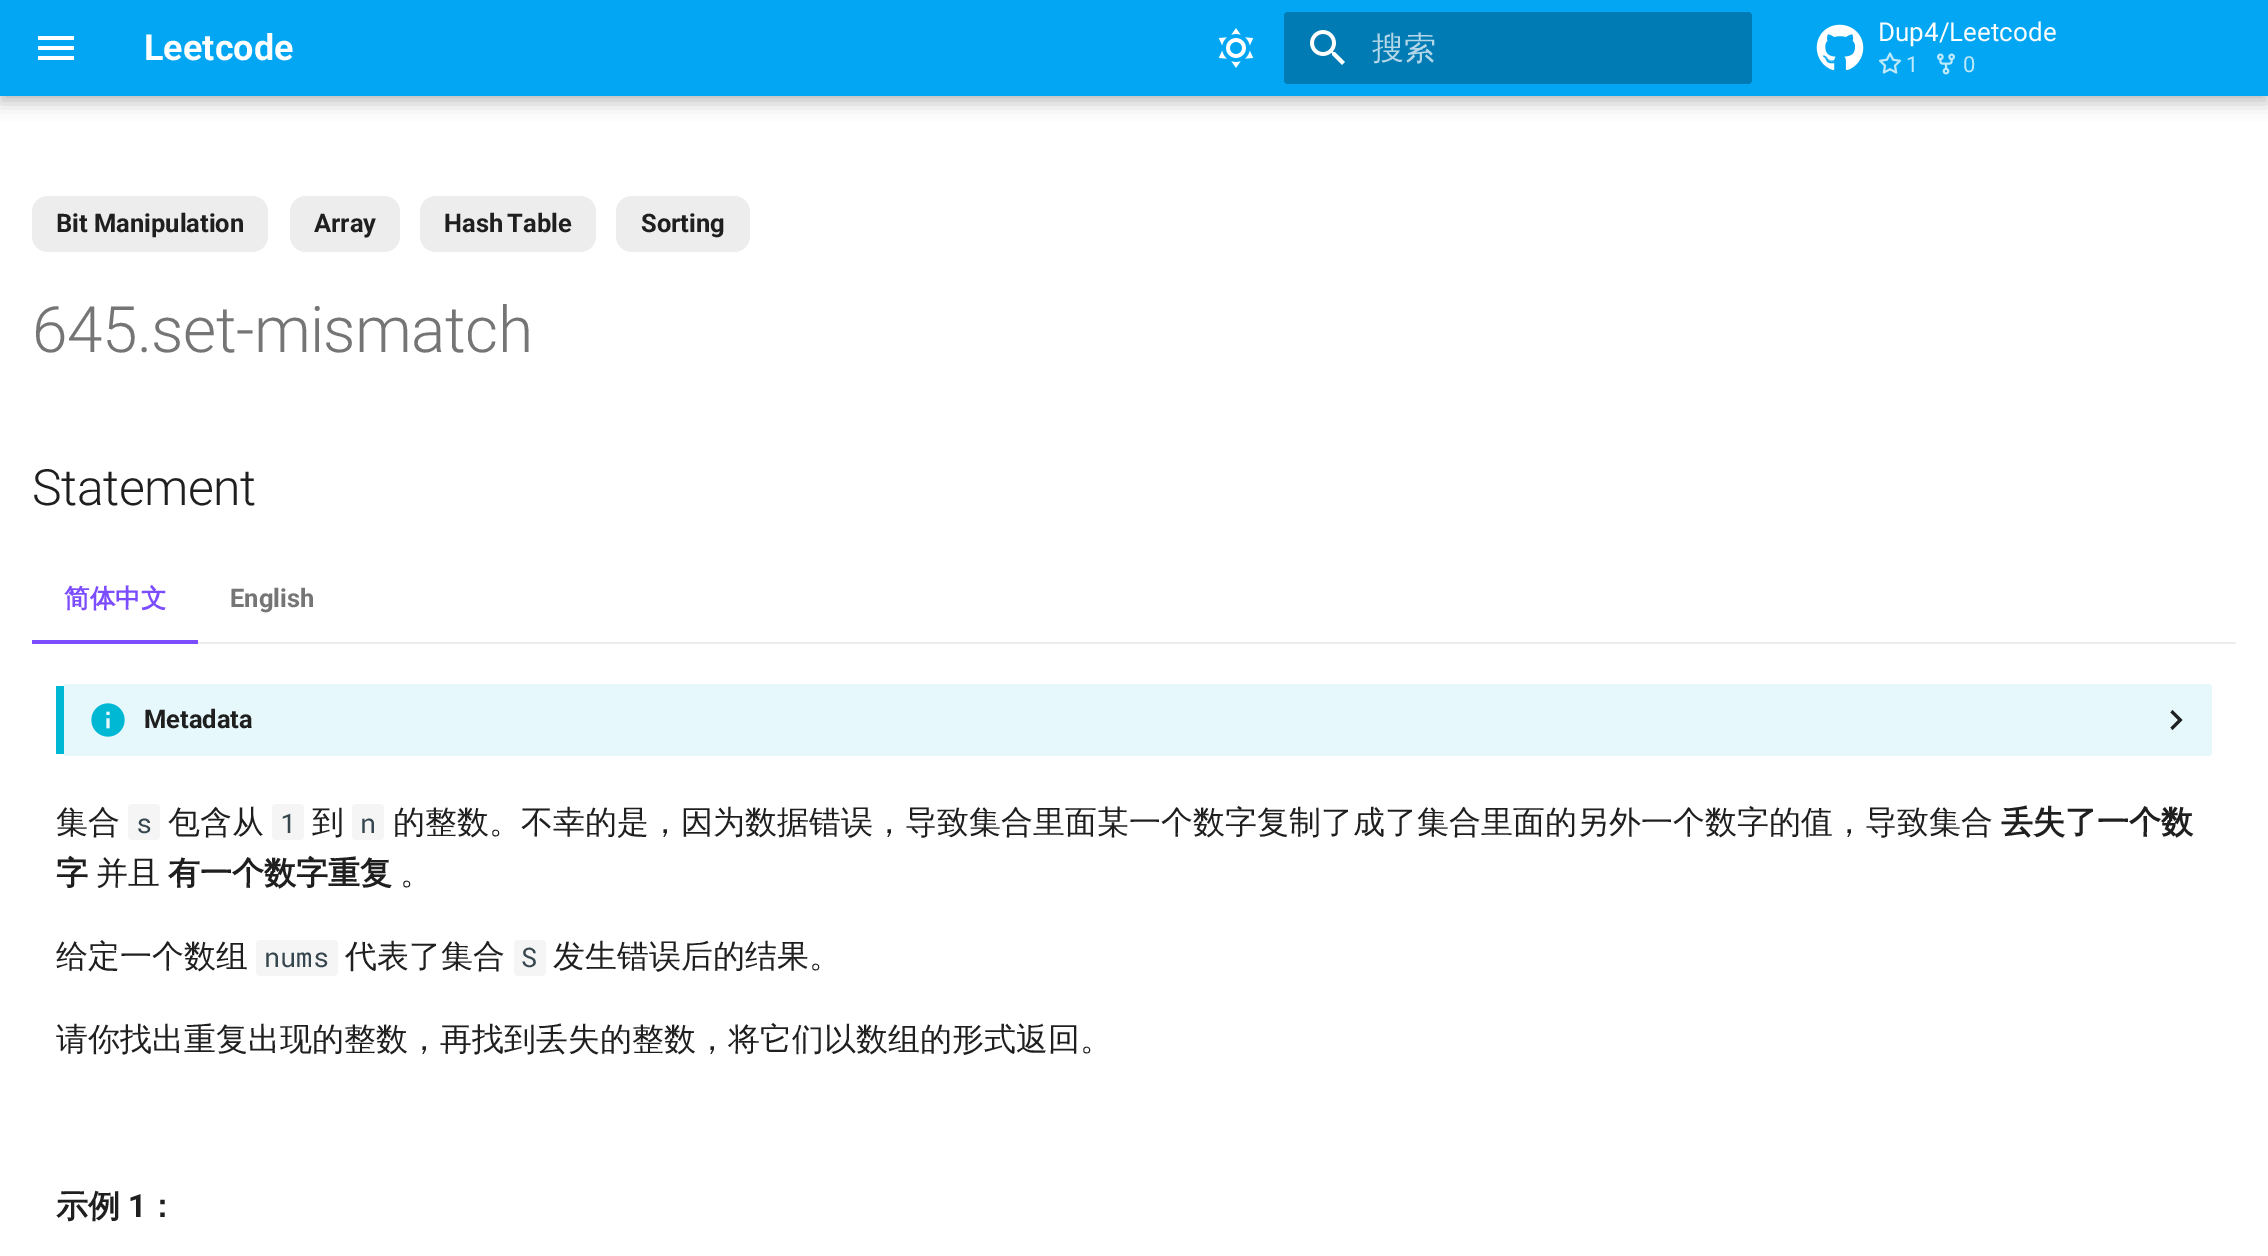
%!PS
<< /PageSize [2268 1256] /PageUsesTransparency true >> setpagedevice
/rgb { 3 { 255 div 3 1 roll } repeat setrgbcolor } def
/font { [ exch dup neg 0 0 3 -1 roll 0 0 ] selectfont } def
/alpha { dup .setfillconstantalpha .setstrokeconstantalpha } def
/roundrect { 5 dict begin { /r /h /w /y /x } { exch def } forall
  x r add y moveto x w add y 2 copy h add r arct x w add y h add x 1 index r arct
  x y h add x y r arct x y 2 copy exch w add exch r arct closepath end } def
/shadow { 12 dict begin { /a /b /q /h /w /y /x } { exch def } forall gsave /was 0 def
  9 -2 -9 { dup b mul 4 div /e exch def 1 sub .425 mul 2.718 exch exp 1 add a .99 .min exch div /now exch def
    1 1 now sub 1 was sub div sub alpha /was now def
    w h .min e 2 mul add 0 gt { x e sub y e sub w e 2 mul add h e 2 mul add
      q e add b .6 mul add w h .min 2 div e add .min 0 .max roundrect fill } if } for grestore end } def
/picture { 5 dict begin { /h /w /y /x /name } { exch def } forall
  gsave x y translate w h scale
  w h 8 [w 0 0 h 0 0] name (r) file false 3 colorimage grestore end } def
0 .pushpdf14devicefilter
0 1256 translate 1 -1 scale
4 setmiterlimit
255 255 255 rgb
0 0 2268 1256 rectfill
0 0 0 rgb
0 8 2268 96 0 8 0.2 shadow
0 0 2268 96 0 4 0.1 shadow
2 166 242 rgb
0 0 2268 96 rectfill
(img/1.rgb) 38 36 36 24 picture
(img/2.rgb) 1218 28 36 40 picture
1 123 179 rgb
1284 12 468 72 4 roundrect fill
(img/3.rgb) 1310 30 35 35 picture
(img/4.rgb) 1816 24 48 47 picture
(img/5.rgb) 1878 52 24 22 picture
(img/6.rgb) 1937 53 18 22 picture
237 237 237 rgb
32 196 236 56 16 roundrect fill
290 196 110 56 16 roundrect fill
420 196 176 56 16 roundrect fill
616 196 134 56 16 roundrect fill
[
  [198 642 2038 2 237 237 237]
  [32 640 166 4 124 77 255]
  [56 686 8 68 0 184 212]
] { aload pop rgb rectfill } forall
230 248 251 rgb
64 684 moveto 64 756 lineto 2208 756 lineto 2210 756 2212 754 2212 752 curveto 2212 688 lineto 2212 686 2210 684 2208 684 curveto closepath fill
(img/7.rgb) 91 703 34 34 picture
30 32 33 rgb
2170.5 727.5 moveto 2178 720 lineto 2170.5 712.5 lineto 2172.5 710 lineto 2182.5 720 lineto 2172.5 730 lineto closepath fill
245 245 245 rgb
128 804 32 36 4 roundrect fill
272 804 32 36 4 roundrect fill
352 804 32 36 4 roundrect fill
256 940 82 36 4 roundrect fill
514 940 32 36 4 roundrect fill
/Roboto-Bold 36 font
255 255 255 rgb
144 60 moveto (Leetcode) show
/WenQuanYiZenHei-Medium 32 font
179 215 232 rgb
1372 59 moveto (搜索) show
/Roboto-Regular 26 font
255 255 255 rgb
1878 41 moveto (Dup4/Leetcode) show
/Roboto-Regular 22 font
192 233 252 rgb
1906 72 moveto (1) show
1963 72 moveto (0) show
/Roboto-Bold 25.5 font
31 31 31 rgb
56 232 moveto (Bit Manipulation) show
314 232 moveto (Array) show
444 232 moveto -2 0 32 (Hash Table) widthshow
641 232 moveto (Sorting) show
/Roboto-Light 64 font
117 117 117 rgb
32 352 moveto -0.6 0 (645.set-mismatch) ashow
/Roboto-Light 50 font
31 31 31 rgb
32 505 moveto -0.5 0 (Statement) ashow
/WenQuanYiZenHei-Bold 25.5 font
124 77 255 rgb
64 607 moveto (简体中文) show
/Roboto-Bold 25.5 font
117 117 117 rgb
230 607 moveto (English) show
31 31 31 rgb
144 728 moveto (Metadata) show
/WenQuanYiZenHei-Medium 32 font
56 833 moveto (集合) show
/RobotoMono-Regular 27 font
54 70 78 rgb
136 833 moveto (s) show
/WenQuanYiZenHei-Medium 32 font
31 31 31 rgb
168 833 moveto (包含从) show
/RobotoMono-Regular 27 font
54 70 78 rgb
280 833 moveto (1) show
/WenQuanYiZenHei-Medium 32 font
31 31 31 rgb
312 833 moveto (到) show
/RobotoMono-Regular 27 font
54 70 78 rgb
360 833 moveto (n) show
/WenQuanYiZenHei-Medium 32 font
31 31 31 rgb
393 833 moveto (的整数。不幸的是，因为数据错误，导致集合里面某一个数字复制了成了集合里面的另外一个数字的值，导致集合) show
/WenQuanYiZenHei-Bold 32 font
2001 833 moveto (丢失了一个数) show
56 884 moveto (字) show
/WenQuanYiZenHei-Medium 32 font
96 884 moveto (并且) show
/WenQuanYiZenHei-Bold 32 font
168 884 moveto (有一个数字重复) show
/WenQuanYiZenHei-Medium 32 font
400 884 moveto (。) show
56 967 moveto (给定一个数组) show
/RobotoMono-Regular 27 font
54 70 78 rgb
264 967 moveto (nums) show
/WenQuanYiZenHei-Medium 32 font
31 31 31 rgb
345 967 moveto (代表了集合) show
/RobotoMono-Regular 27 font
54 70 78 rgb
521 967 moveto (S) show
/WenQuanYiZenHei-Medium 32 font
31 31 31 rgb
553 967 moveto (发生错误后的结果。) show
56 1050 moveto (请你找出重复出现的整数，再找到丢失的整数，将它们以数组的形式返回。) show
/WenQuanYiZenHei-Bold 32 font
56 1217 moveto (示例) show
/Roboto-Bold 32 font
128 1217 moveto (1) show
/WenQuanYiZenHei-Bold 32 font
146 1217 moveto (：) show
.poppdf14devicefilter showpage
